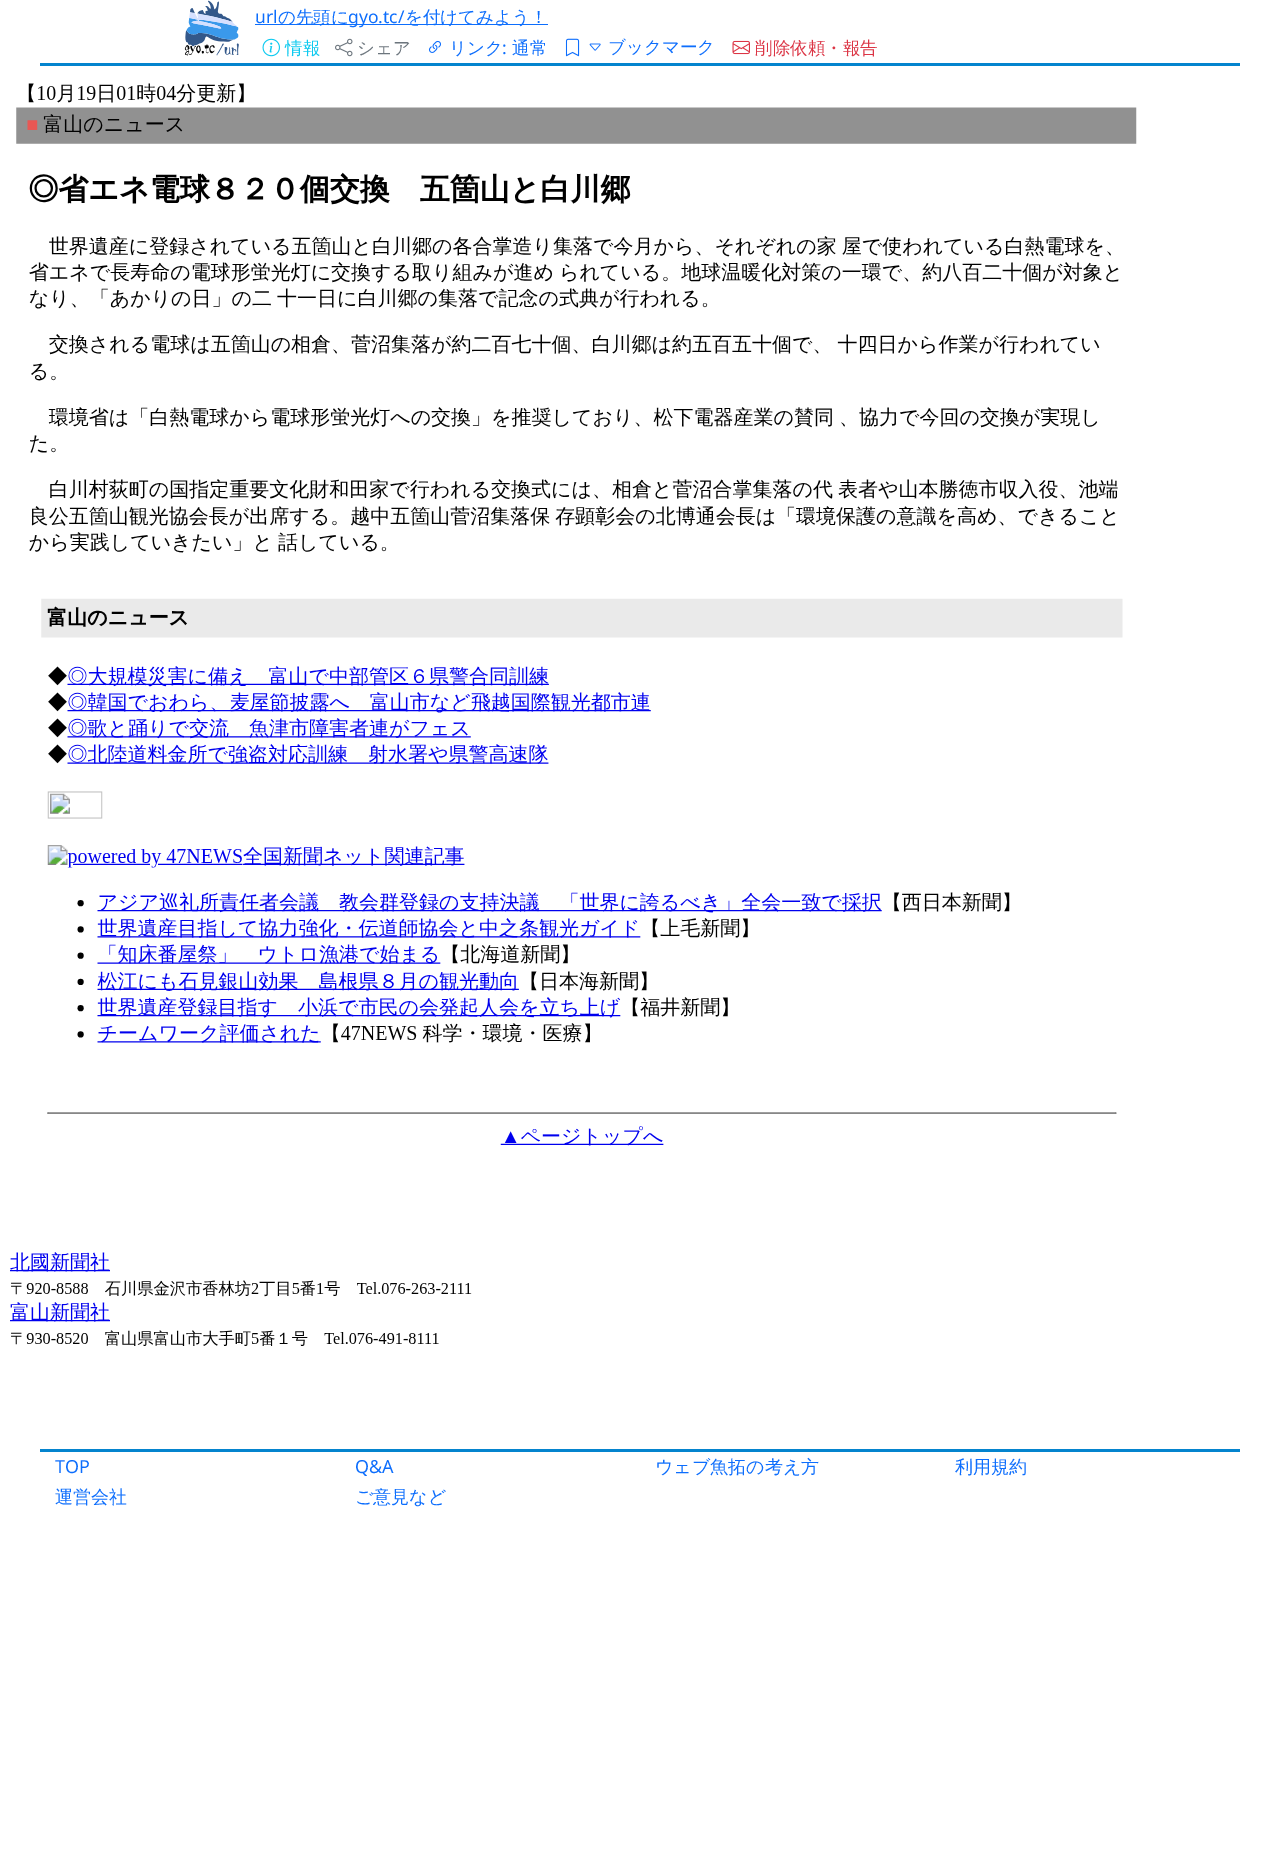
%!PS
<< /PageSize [1279 1854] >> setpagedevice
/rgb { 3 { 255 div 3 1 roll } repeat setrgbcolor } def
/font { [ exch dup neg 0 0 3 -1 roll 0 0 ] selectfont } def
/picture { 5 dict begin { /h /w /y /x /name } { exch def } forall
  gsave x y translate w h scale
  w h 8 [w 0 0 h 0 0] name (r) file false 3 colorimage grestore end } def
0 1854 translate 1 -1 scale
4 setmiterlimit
255 255 255 rgb
0 0 1279 1854 rectfill
4 132 206 rgb
40 63 1200 3 rectfill
(img/1.rgb) 184 0 55 56 picture
13 110 253 rgb
255 24 293 1 rectfill
(img/2.rgb) 262 38 18 19 picture
(img/3.rgb) 335 38 18 19 picture
(img/4.rgb) 428 40 13 13 picture
(img/5.rgb) 565 38 15 19 picture
(img/6.rgb) 589 43 12 8 picture
(img/7.rgb) 732 40 18 15 picture
(img/8.rgb) 10 83 1127 1263 picture
4 132 206 rgb
40 1449 1200 3 rectfill
/NotoSans-Regular 17.5 font
13 110 253 rgb
255 23 moveto (url) show
/WenQuanYiZenHei-Medium 17.5 font
278 23 moveto (の先頭に) show
/NotoSans-Regular 17.5 font
348 23 moveto (gyo.tc/) show
/WenQuanYiZenHei-Medium 17.5 font
405 23 moveto (を付けてみよう！) show
13 202 240 rgb
285 54 moveto (情報) show
108 117 125 rgb
357 54 moveto (シェア) show
13 110 253 rgb
449 54 moveto (リンク) show
/NotoSans-Regular 17.5 font
502 54 moveto (:) show
/WenQuanYiZenHei-Medium 17.5 font
512 54 moveto (通常) show
608 53 moveto (ブックマーク) show
220 53 69 rgb
755 54 moveto (削除依頼・報告) show
/NotoSans-Regular 18 font
13 110 253 rgb
55 1473 moveto (TOP) show
355 1473 moveto (Q&A) show
/WenQuanYiZenHei-Medium 18 font
[
  [(ウェブ魚拓の考え方) 655 1473]
  [(利用規約) 955 1473]
  [(運営会社) 55 1503]
  [(ご意見など) 355 1503]
] { aload pop moveto show } forall
showpage
